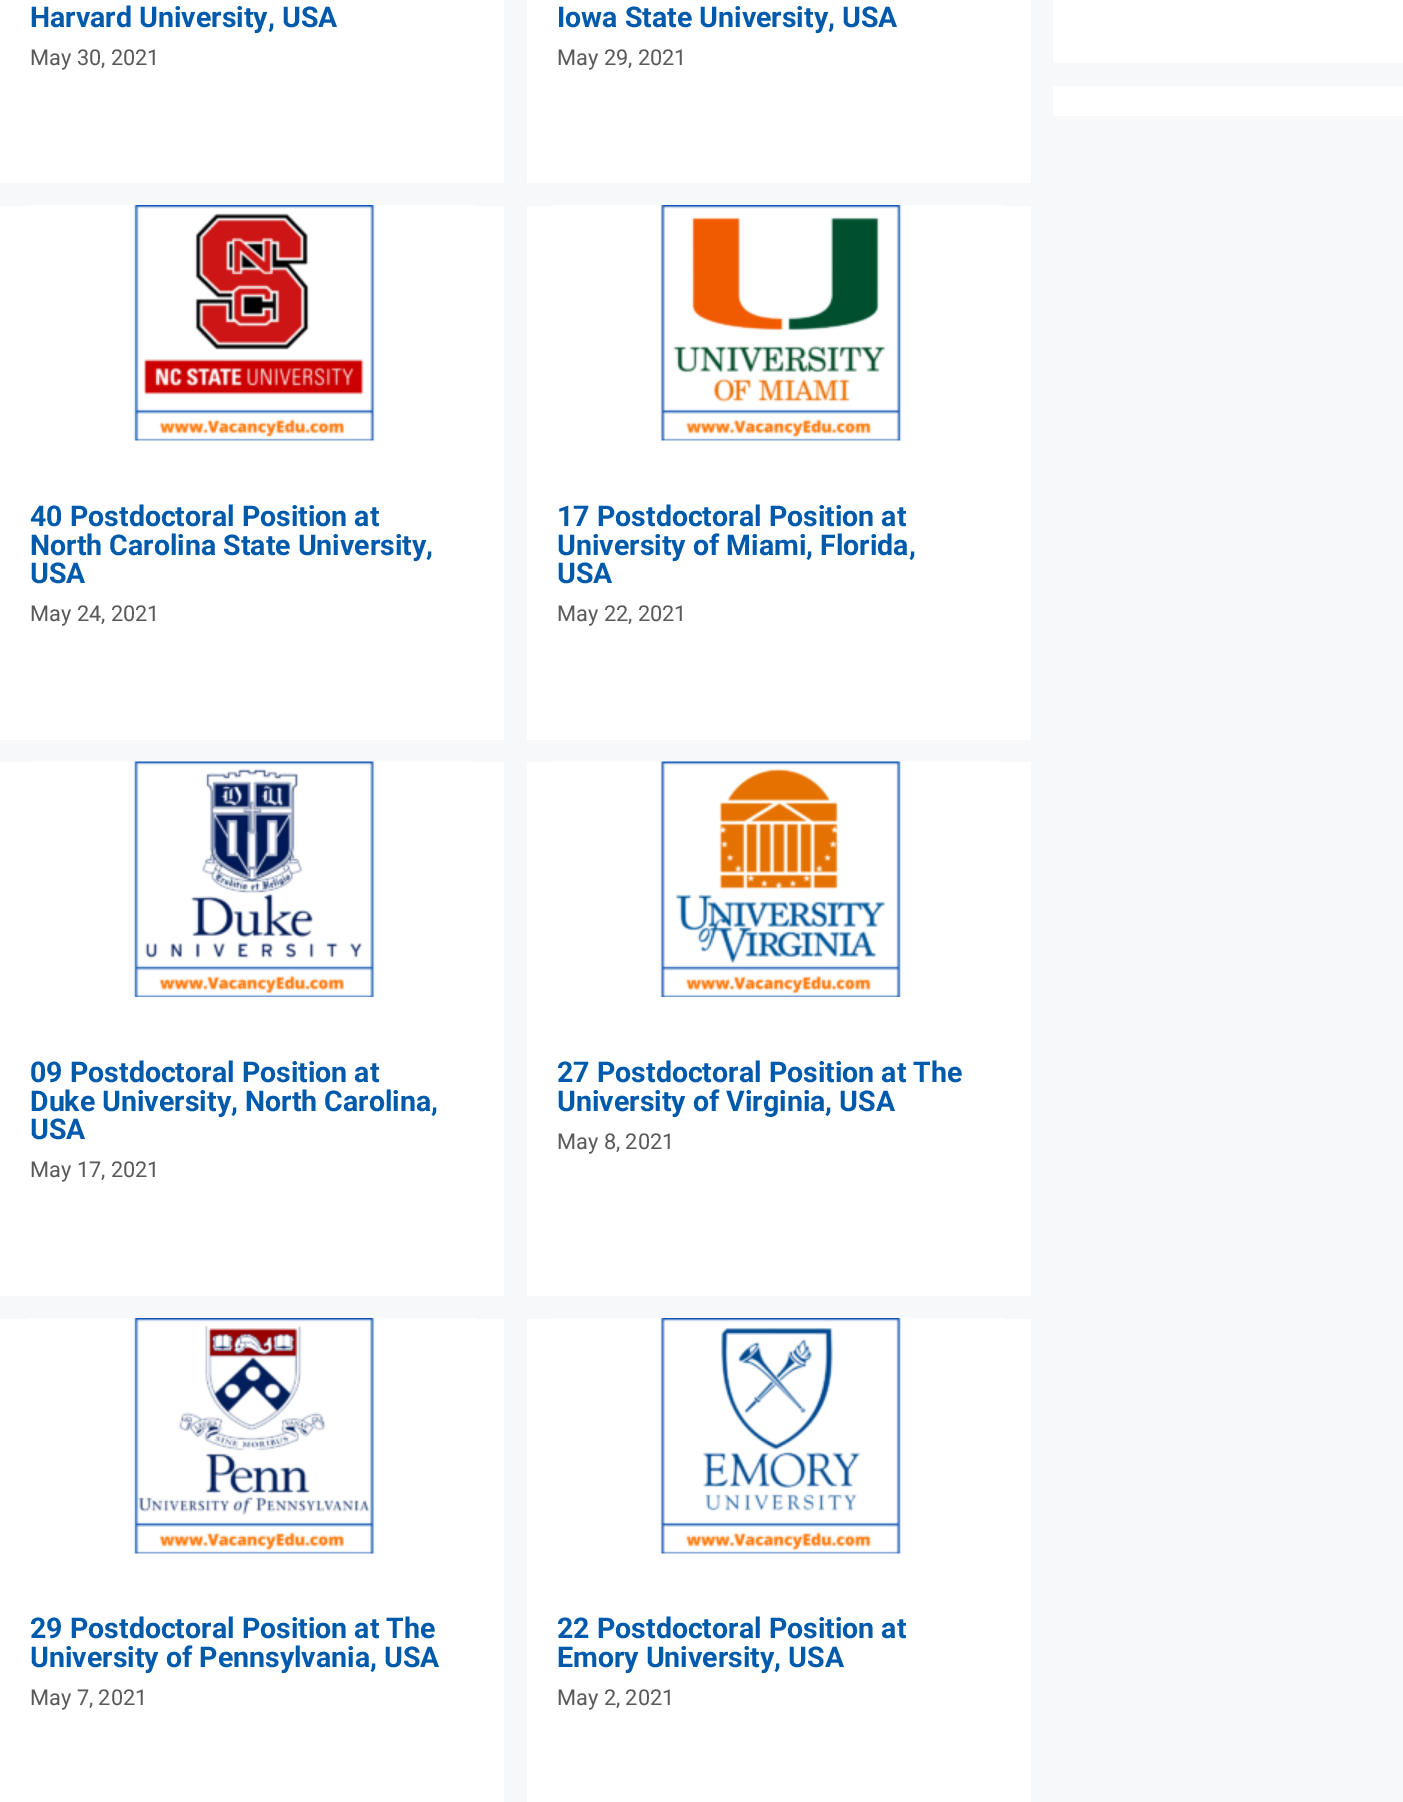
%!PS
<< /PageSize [1403 1802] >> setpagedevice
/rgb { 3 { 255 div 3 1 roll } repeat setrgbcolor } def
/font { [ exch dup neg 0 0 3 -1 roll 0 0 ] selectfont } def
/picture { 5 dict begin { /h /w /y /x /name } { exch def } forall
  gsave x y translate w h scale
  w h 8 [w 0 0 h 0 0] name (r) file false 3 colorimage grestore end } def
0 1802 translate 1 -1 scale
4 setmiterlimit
247 248 249 rgb
0 0 1403 1802 rectfill
[
  [0 0 504 183 255 255 255]
  [527 0 504 183 255 255 255]
  [0 206 504 534 255 255 255]
] { aload pop rgb rectfill } forall
(img/1.rgb) 27 205 450 236 picture
527 206 504 534 rectfill
(img/2.rgb) 553 205 451 236 picture
0 762 504 534 rectfill
(img/3.rgb) 27 761 450 236 picture
527 762 504 534 rectfill
(img/4.rgb) 554 761 449 236 picture
0 1319 504 483 rectfill
(img/5.rgb) 27 1318 450 236 picture
527 1319 504 483 rectfill
(img/6.rgb) 553 1318 451 236 picture
1053 0 350 63 rectfill
1053 86 350 30 rectfill
/Roboto-Bold 28.5 font
0 90 171 rgb
30 27 moveto (Harvard University, USA) show
/Roboto-Regular 21.75 font
89 89 89 rgb
30 65 moveto (May 30, 2021) show
/Roboto-Bold 28.5 font
0 90 171 rgb
557 27 moveto (Iowa State University, USA) show
/Roboto-Regular 21.75 font
89 89 89 rgb
557 65 moveto (May 29, 2021) show
/Roboto-Bold 28.5 font
0 90 171 rgb
[
  [(40 Postdoctoral Position at) 30 526]
  [(North Carolina State University,) 30 555]
  [(USA) 30 583]
] { aload pop moveto show } forall
/Roboto-Regular 21.75 font
89 89 89 rgb
30 621 moveto (May 24, 2021) show
/Roboto-Bold 28.5 font
0 90 171 rgb
[
  [(17 Postdoctoral Position at) 557 526]
  [(University of Miami, Florida,) 557 555]
  [(USA) 557 583]
] { aload pop moveto show } forall
/Roboto-Regular 21.75 font
89 89 89 rgb
557 621 moveto (May 22, 2021) show
/Roboto-Bold 28.5 font
0 90 171 rgb
[
  [(09 Postdoctoral Position at) 30 1082]
  [(Duke University, North Carolina,) 30 1111]
  [(USA) 30 1139]
] { aload pop moveto show } forall
/Roboto-Regular 21.75 font
89 89 89 rgb
30 1177 moveto (May 17, 2021) show
/Roboto-Bold 28.5 font
0 90 171 rgb
557 1082 moveto (27 Postdoctoral Position at The) show
557 1111 moveto (University of Virginia, USA) show
/Roboto-Regular 21.75 font
89 89 89 rgb
557 1149 moveto (May 8, 2021) show
/Roboto-Bold 28.5 font
0 90 171 rgb
30 1638 moveto (29 Postdoctoral Position at The) show
30 1667 moveto (University of Pennsylvania, USA) show
/Roboto-Regular 21.75 font
89 89 89 rgb
30 1705 moveto (May 7, 2021) show
/Roboto-Bold 28.5 font
0 90 171 rgb
557 1638 moveto (22 Postdoctoral Position at) show
557 1667 moveto (Emory University, USA) show
/Roboto-Regular 21.75 font
89 89 89 rgb
557 1705 moveto (May 2, 2021) show
showpage
